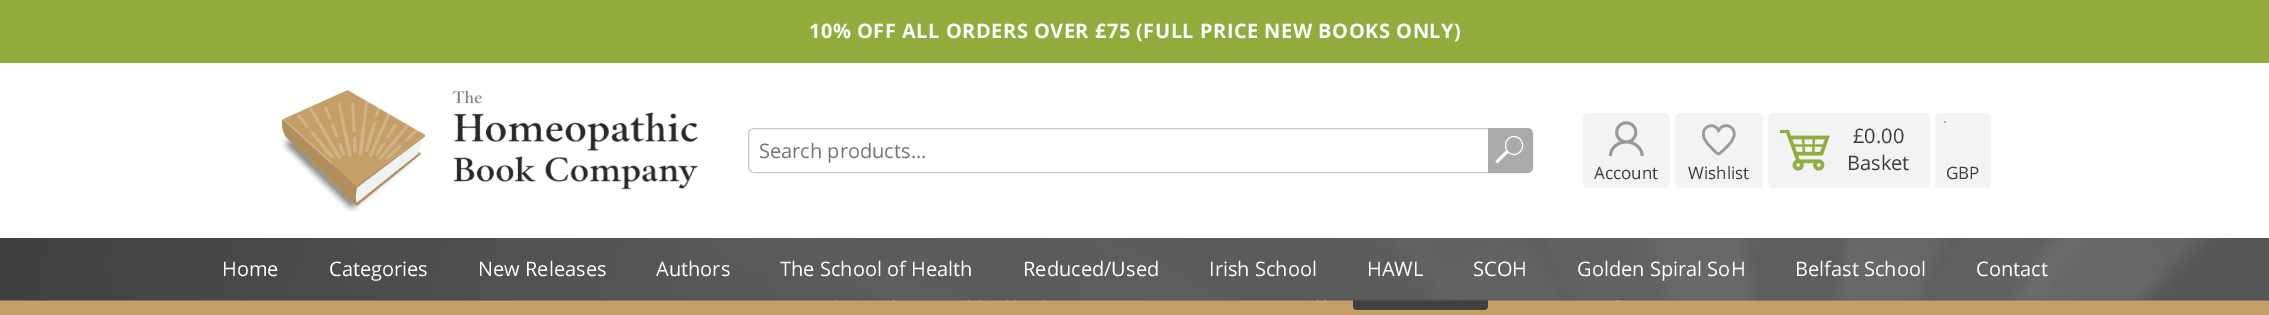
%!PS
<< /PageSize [2269 315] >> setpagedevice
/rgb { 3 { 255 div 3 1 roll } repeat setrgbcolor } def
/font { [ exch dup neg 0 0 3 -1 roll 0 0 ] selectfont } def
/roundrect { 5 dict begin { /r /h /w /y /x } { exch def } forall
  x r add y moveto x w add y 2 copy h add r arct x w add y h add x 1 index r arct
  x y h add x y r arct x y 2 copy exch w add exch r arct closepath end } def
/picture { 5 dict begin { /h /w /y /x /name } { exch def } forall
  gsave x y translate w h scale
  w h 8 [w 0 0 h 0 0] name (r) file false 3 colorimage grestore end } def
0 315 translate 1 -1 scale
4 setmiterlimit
196 159 103 rgb
0 0 2269 315 rectfill
145 172 60 rgb
0 0 2269 63 rectfill
255 255 255 rgb
0 63 2269 175 rectfill
(img/1.rgb) 281 90 417 122 picture
204 204 204 rgb
748.5 128.5 784 44 5.5 roundrect stroke
170 170 170 rgb
1488 128 moveto 1527 128 lineto 1530.5 128 1533 130.5 1533 134 curveto 1533 167 lineto 1533 170.5 1530.5 173 1527 173 curveto 1488 173 lineto closepath fill
255 255 255 rgb
1506 150.5 moveto 1508.5 152.5 lineto 1497.5 163.5 lineto 1495.5 161 lineto closepath fill
1505.5 136.5 17 18 8.5 roundrect stroke
243 243 243 rgb
1768 113 162 75 6 roundrect fill
(img/2.rgb) 1780 130 50 41 picture
1583 113 87 75 6 roundrect fill
(img/3.rgb) 1609 121 35 35 picture
1675 113 88 75 6 roundrect fill
153 153 153 rgb
2.5 setlinewidth
1733.5 130.5 moveto 1731 125 1724.5 124 1720.5 128 curveto 1718.5 130.5 lineto 1713.5 120.5 1700 127.5 1704 137.5 curveto 1705.5 142.5 1710 146.5 1713.5 150 curveto 1719.5 155.5 1718 155 1723 150.5 curveto 1728 146 1737 138 1733.5 130.5 curveto closepath stroke
243 243 243 rgb
1935 113 56 75 6 roundrect fill
(img/4.rgb) 1944 121 2 2 picture
64 64 64 rgb
1353 275 135 35 4 roundrect fill
(img/5.rgb) 0 238 2269 63 picture
/OpenSans-Bold 20 font
255 255 255 rgb
809 38 moveto 0.5 0 (10% OFF ALL ORDERS OVER £75 \(FULL PRICE NEW BOOKS ONLY\)) ashow
/OpenSans-Regular 20 font
117 117 117 rgb
759 158 moveto (Search products...) show
62 62 62 rgb
1853 143 moveto (£0.00) show
1847 170 moveto (Basket) show
/OpenSans-Regular 17 font
[
  [(Account) 1594 179]
  [(Wishlist) 1688 179]
  [(GBP) 1946 179]
] { aload pop moveto show } forall
/OpenSans-Regular 20 font
255 255 255 rgb
[
  [(Home) 222 276]
  [(Categories) 329 276]
  [(New Releases) 478 276]
  [(Authors) 656 276]
  [(The School of Health) 780 276]
  [(Reduced/Used) 1023 276]
  [(Irish School) 1209 276]
  [(HAWL) 1367 276]
  [(SCOH) 1473 276]
  [(Golden Spiral SoH) 1577 276]
  [(Belfast School) 1795 276]
  [(Contact) 1976 276]
] { aload pop moveto show } forall
showpage
